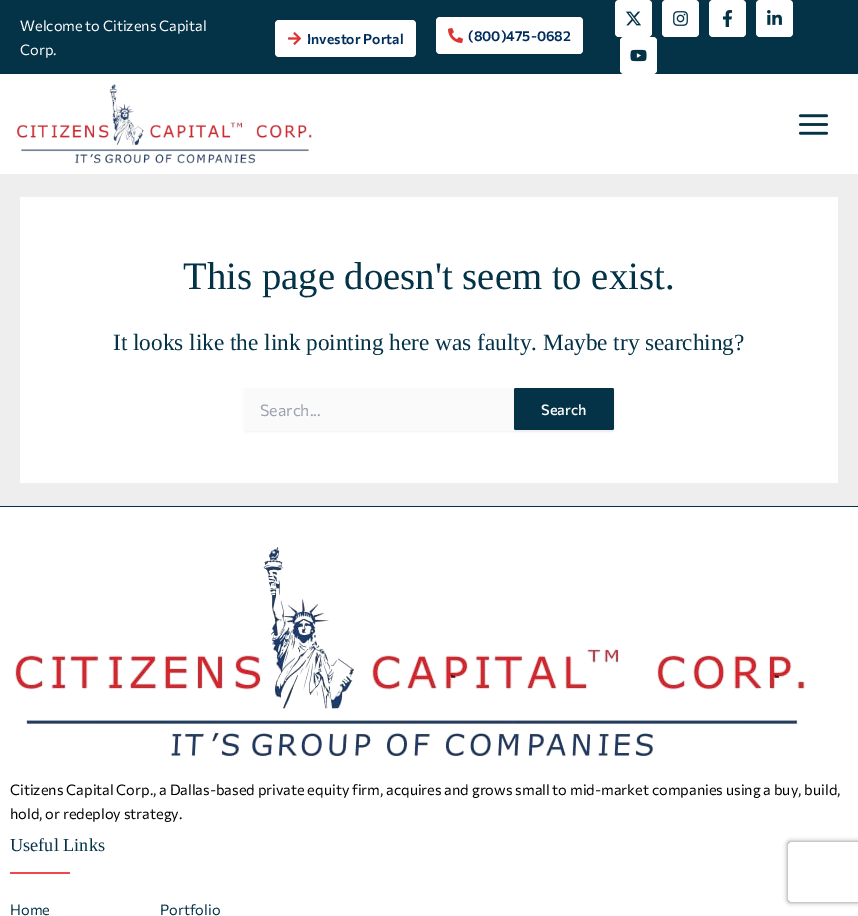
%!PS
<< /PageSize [858 916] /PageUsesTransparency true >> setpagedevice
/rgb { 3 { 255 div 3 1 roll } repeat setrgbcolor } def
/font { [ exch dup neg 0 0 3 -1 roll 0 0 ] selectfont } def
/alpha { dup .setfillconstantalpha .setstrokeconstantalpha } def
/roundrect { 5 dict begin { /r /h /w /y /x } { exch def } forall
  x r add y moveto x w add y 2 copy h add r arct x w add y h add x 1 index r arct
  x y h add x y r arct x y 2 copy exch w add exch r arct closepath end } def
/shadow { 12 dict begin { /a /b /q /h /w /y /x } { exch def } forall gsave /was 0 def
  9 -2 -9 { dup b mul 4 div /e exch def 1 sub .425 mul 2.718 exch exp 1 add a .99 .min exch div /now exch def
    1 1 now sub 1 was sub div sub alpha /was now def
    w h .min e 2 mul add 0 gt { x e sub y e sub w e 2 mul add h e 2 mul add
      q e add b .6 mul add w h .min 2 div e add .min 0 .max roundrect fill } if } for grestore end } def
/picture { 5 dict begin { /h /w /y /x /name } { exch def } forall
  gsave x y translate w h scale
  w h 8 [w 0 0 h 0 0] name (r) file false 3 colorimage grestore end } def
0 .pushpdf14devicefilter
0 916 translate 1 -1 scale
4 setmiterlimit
255 255 255 rgb
0 0 858 916 rectfill
4 50 71 rgb
0 0 858 74 rectfill
255 255 255 rgb
275 20 141 37 4 roundrect fill
(img/1.rgb) 287 32 14 13 picture
436 17 147 37 4 roundrect fill
(img/2.rgb) 448 28 15 15 picture
615 0 37 37 4 roundrect fill
(img/3.rgb) 626 11 15 15 picture
662 0 37 37 4 roundrect fill
(img/4.rgb) 673 11 15 15 picture
709 0 37 37 4 roundrect fill
(img/5.rgb) 722 10 11 17 picture
756 0 37 37 4 roundrect fill
(img/6.rgb) 767 10 15 15 picture
620 37 37 37 4 roundrect fill
(img/7.rgb) 630 49 17 13 picture
(img/8.rgb) 16 84 296 80 picture
(img/9.rgb) 798 114 31 21 picture
238 238 238 rgb
0 174 858 332 rectfill
255 255 255 rgb
20 197 818 286 rectfill
0 0 0 rgb
244 389 370 43 2 1 0.05 shadow
250 250 250 rgb
244 388 370 43 2 roundrect fill
0 0 0 rgb
514 389 100 42 2 1 0.05 shadow
4 50 71 rgb
514 388 100 42 2 roundrect fill
0 506 858 1 rectfill
(img/10.rgb) 15 547 790 212 picture
241 72 79 rgb
10 872 60 2 rectfill
gsave
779 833 moveto 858 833 lineto 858 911 lineto 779 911 lineto closepath 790 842 moveto 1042 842 lineto 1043 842 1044 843 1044 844 curveto 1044 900 lineto 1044 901 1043 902 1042 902 curveto 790 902 lineto 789 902 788 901 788 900 curveto 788 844 lineto 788 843 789 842 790 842 curveto closepath eoclip newpath
128 128 128 rgb
788 842 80 60 2 2.5 1 shadow
grestore
/Commissioner-Regular 14.6 font
255 255 255 rgb
20 31 moveto (Welcome to Citizens Capital) show
20 55 moveto (Corp.) show
/Commissioner-SemiBold 14 font
1 45 93 rgb
307 44 moveto (Investor Portal) show
468 41 moveto (\(800\)475-0682) show
/LiberationSerif-Regular 38.75 font
4 50 71 rgb
183 289 moveto (This page doesn't seem to exist.) show
/LiberationSerif-Regular 23.25 font
113 350 moveto (It looks like the link pointing here was faulty. Maybe try searching?) show
/Commissioner-Regular 16 font
156 163 175 rgb
260 416 moveto (Search...) show
/Commissioner-Medium 14.6 font
255 255 255 rgb
541 415 moveto (Search) show
/Commissioner-Regular 14.6 font
0 0 0 rgb
10 795 moveto (Citizens Capital Corp., a Dallas-based private equity firm, acquires and grows small to mid-market companies using a buy, build,) show
10 819 moveto (hold, or redeploy strategy.) show
/LiberationSerif-Regular 18.25 font
4 50 71 rgb
10 851 moveto (Useful Links) show
/Commissioner-Regular 14.6 font
10 915 moveto (Home) show
160 915 moveto (Portfolio) show
.poppdf14devicefilter showpage
